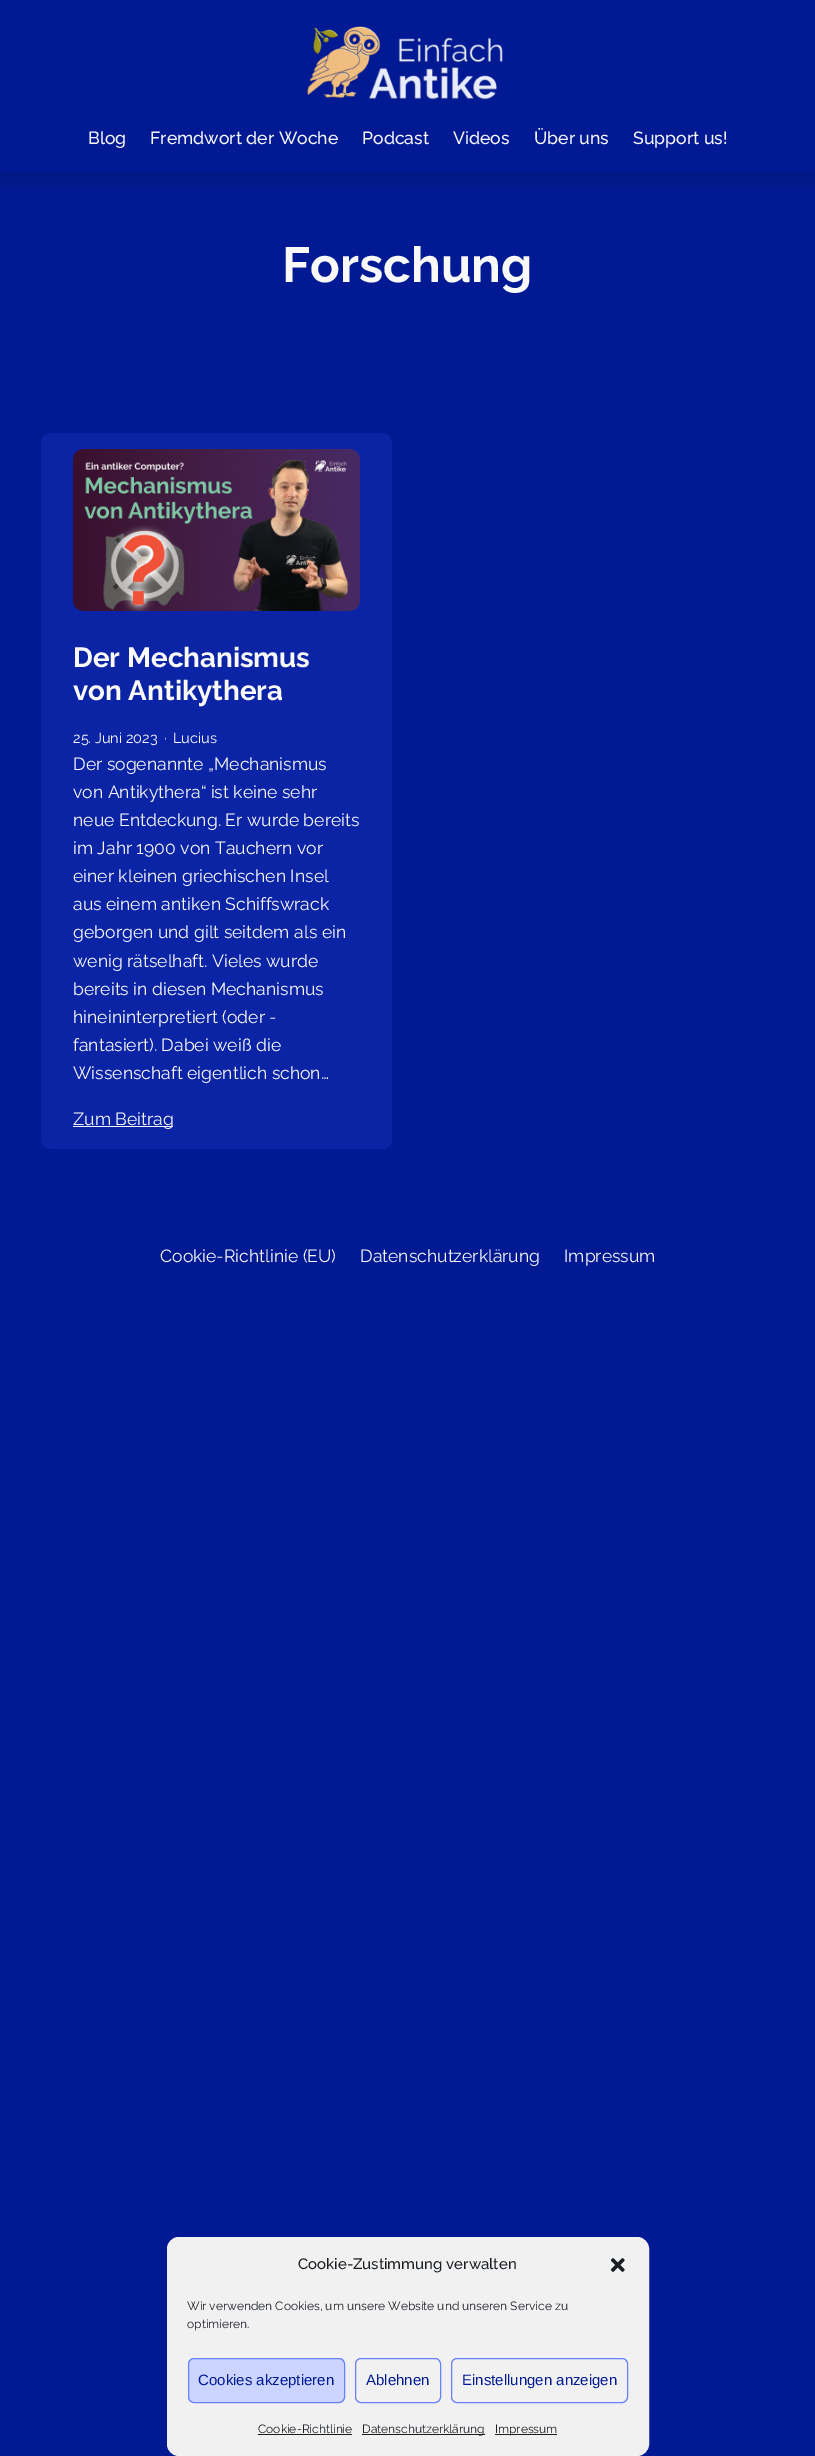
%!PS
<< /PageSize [815 2456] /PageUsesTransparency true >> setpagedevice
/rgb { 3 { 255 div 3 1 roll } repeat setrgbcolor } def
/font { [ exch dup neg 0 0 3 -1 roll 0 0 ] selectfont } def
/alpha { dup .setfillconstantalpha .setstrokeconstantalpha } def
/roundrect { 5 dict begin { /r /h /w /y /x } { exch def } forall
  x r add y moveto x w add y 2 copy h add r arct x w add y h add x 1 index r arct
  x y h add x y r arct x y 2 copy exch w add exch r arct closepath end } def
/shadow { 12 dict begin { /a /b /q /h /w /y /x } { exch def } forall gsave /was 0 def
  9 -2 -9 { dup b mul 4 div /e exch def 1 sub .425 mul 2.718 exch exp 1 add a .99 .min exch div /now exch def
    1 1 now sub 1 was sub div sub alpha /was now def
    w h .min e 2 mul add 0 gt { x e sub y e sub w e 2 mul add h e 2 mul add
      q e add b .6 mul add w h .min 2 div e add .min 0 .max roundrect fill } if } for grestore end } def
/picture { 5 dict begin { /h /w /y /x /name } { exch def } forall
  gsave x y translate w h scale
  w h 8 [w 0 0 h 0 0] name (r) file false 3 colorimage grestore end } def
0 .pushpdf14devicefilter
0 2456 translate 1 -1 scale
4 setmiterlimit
1 25 147 rgb
0 0 815 2456 rectfill
gsave
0 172 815 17 rectclip
0 0 0 rgb
0 8 815 172 0 9 0.12 shadow
grestore
(img/1.rgb) 307 26 196 74 picture
11 36 165 rgb
41 433 351 716 10 roundrect fill
(img/2.rgb) 73 449 287 162 picture
249 249 249 rgb
73 1126 100 1 rectfill
241 241 241 rgb
167.5 2237.5 481 218 11.5 roundrect gsave fill grestore
stroke
(img/3.rgb) 610 2258 15 14 picture
204 213 255 rgb
188.5 2358.5 156 44 5.5 roundrect gsave fill grestore
103 128 254 rgb
stroke
355.5 2358.5 85 44 5.5 roundrect stroke
451.5 2358.5 176 44 5.5 roundrect stroke
[
  [258 2434 94 1 25 30 35]
  [362 2434 123 1 25 30 35]
  [495 2434 62 1 25 30 35]
] { aload pop rgb rectfill } forall
/Raleway-Medium 17.6 font
249 249 249 rgb
[
  [(Blog) 88 144]
  [(Fremdwort der Woche) 150 144]
  [(Podcast) 362 144]
  [(Videos) 453 144]
  [(Über uns) 534 144]
  [(Support us!) 633 144]
] { aload pop moveto show } forall
/Raleway-Bold 49.25 font
282 282 moveto (Forschung) show
/Raleway-Bold 27.75 font
73 667 moveto (Der Mechanismus) show
73 700 moveto (von Antikythera) show
/Raleway-Regular 14.5 font
255 255 255 rgb
[
  [(25. Juni 2023) 73 743]
  [(·) 164 743]
  [(Lucius) 173 743]
] { aload pop moveto show } forall
/Raleway-Regular 17.6 font
249 249 249 rgb
[
  [(Der sogenannte „Mechanismus) 73 770]
  [(von Antikythera“ ist keine sehr) 73 798]
  [(neue Entdeckung. Er wurde bereits) 73 826]
  [(im Jahr 1900 von Tauchern vor) 73 854]
  [(einer kleinen griechischen Insel) 73 882]
  [(aus einem antiken Schiffswrack) 73 910]
  [(geborgen und gilt seitdem als ein) 73 938]
  [(wenig rätselhaft. Vieles wurde) 73 967]
  [(bereits in diesen Mechanismus) 73 995]
  [(hineininterpretiert \(oder -) 73 1023]
  [(fantasiert\). Dabei weiß die) 73 1051]
  [(Wissenschaft eigentlich schon…) 73 1079]
  [(Zum Beitrag) 73 1125]
  [(Cookie-Richtlinie \(EU\)) 160 1262]
  [(Datenschutzerklärung) 360 1262]
  [(Impressum) 564 1262]
] { aload pop moveto show } forall
/Raleway-Medium 15 font
25 30 35 rgb
298 2269 moveto (Cookie-Zustimmung verwalten) show
/Raleway-Regular 12 font
187 2310 moveto (Wir verwenden Cookies, um unsere Website und unseren Service zu) show
187 2328 moveto (optimieren.) show
/LiberationSans-Regular 15 font
1 25 147 rgb
[
  [(Cookies akzeptieren) 198 2385]
  [(Ablehnen) 366 2385]
  [(Einstellungen anzeigen) 462 2385]
] { aload pop moveto show } forall
/Raleway-Regular 12 font
25 30 35 rgb
[
  [(Cookie-Richtlinie) 258 2433]
  [(Datenschutzerklärung) 362 2433]
  [(Impressum) 495 2433]
] { aload pop moveto show } forall
.poppdf14devicefilter showpage
